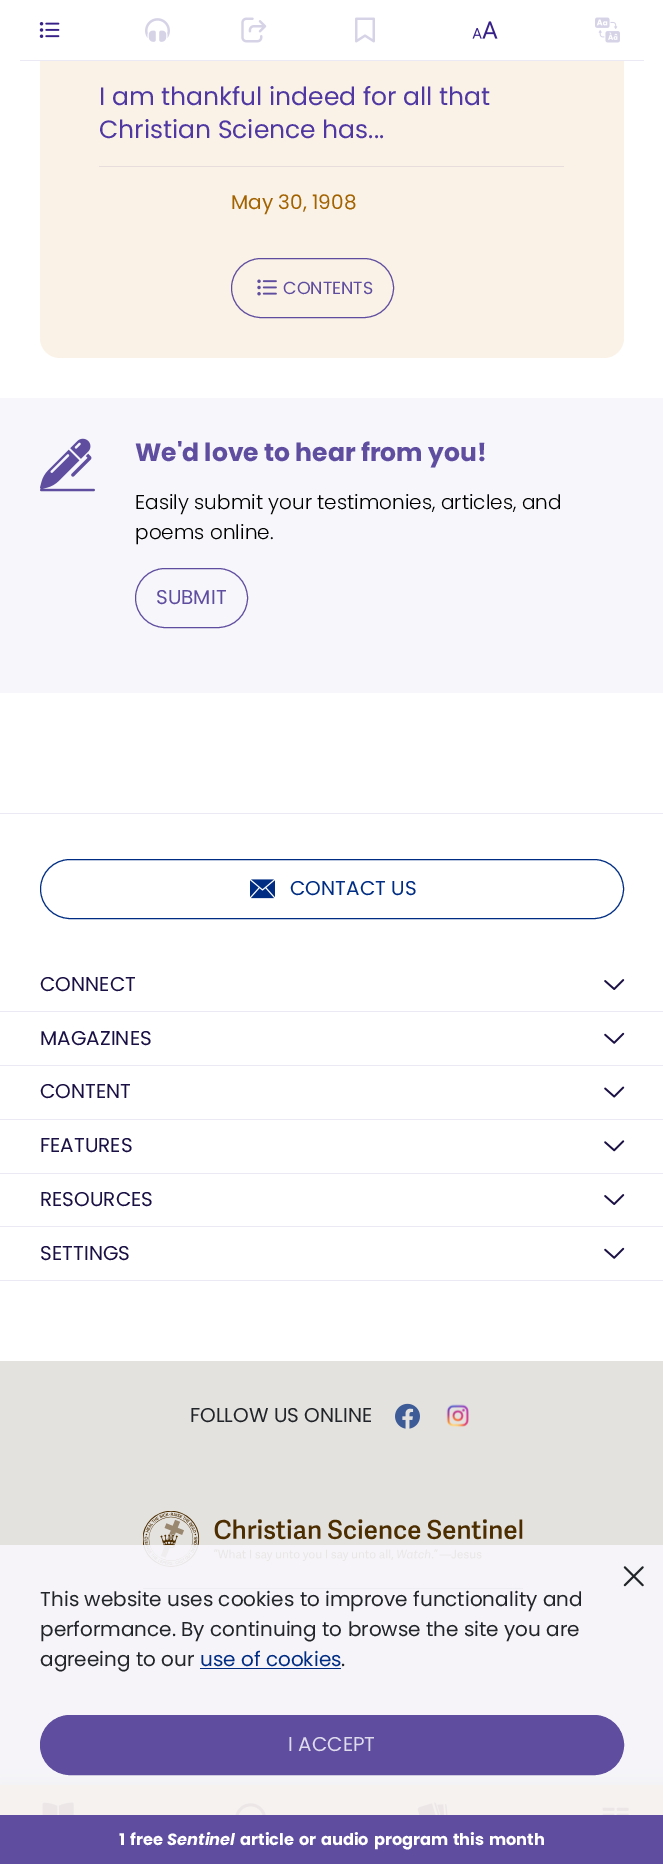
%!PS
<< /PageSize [663 1864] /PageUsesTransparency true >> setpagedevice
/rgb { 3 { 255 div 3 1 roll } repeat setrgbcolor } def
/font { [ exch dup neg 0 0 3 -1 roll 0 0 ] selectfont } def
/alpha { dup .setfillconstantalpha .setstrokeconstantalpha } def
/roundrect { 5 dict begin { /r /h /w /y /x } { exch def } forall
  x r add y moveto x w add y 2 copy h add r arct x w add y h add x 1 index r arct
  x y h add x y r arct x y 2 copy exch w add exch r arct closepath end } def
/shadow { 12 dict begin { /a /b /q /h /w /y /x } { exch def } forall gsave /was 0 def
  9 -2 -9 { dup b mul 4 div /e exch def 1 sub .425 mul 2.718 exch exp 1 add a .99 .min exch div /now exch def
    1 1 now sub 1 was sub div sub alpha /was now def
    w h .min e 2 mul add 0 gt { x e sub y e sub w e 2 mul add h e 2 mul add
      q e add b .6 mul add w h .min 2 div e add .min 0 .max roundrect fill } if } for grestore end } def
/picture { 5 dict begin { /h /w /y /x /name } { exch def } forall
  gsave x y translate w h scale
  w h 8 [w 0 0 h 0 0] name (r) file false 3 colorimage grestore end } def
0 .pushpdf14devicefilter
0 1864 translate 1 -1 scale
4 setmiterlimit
255 255 255 rgb
0 0 663 1864 rectfill
250 242 230 rgb
40 -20 584 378 20 roundrect fill
255 255 255 rgb
40 0 584 60 rectfill
235 233 243 rgb
20 60 624 1 rectfill
(img/1.rgb) 39 22 21 16 picture
(img/2.rgb) 145 18 25 24 picture
(img/3.rgb) 241 17 26 26 picture
(img/4.rgb) 355 17 20 26 picture
(img/5.rgb) 472 21 26 18 picture
(img/6.rgb) 595 17 25 26 picture
231 221 221 rgb
99 166 465 1 rectfill
95 77 160 rgb
231.5 258.5 162 59 29.5 roundrect stroke
(img/7.rgb) 257 279 20 17 picture
247 246 250 rgb
0 398 663 295 rectfill
(img/8.rgb) 40 438 55 54 picture
95 77 160 rgb
135.5 568.5 112 59 29.5 roundrect stroke
235 233 243 rgb
0 813 663 1 rectfill
0 45 131 rgb
40.5 859.5 583 59 29.5 roundrect stroke
(img/9.rgb) 250 879 25 20 picture
235 233 243 rgb
0 1011 663 1 rectfill
(img/10.rgb) 604 979 21 11 picture
0 1065 663 1 rectfill
(img/11.rgb) 604 1032 21 12 picture
0 1119 663 1 rectfill
(img/12.rgb) 604 1086 21 12 picture
0 1173 663 1 rectfill
(img/13.rgb) 604 1140 21 12 picture
0 1226 663 1 rectfill
(img/10.rgb) 604 1194 21 11 picture
0 1280 663 1 rectfill
(img/11.rgb) 604 1247 21 12 picture
228 226 223 rgb
0 1361 663 424 rectfill
(img/14.rgb) 395 1403 25 26 picture
(img/15.rgb) 446 1404 23 23 picture
(img/16.rgb) 143 1511 380 56 picture
137 136 134 rgb
143 1588 380 1 rectfill
0 0 0 rgb
0 1781 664 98 0 5 0.2 shadow
229 189 128 rgb
0 1785 663 30 rectfill
(img/18.rgb) 42 1802 32 13 picture
(img/19.rgb) 235 1803 31 12 picture
(img/20.rgb) 417 1802 31 13 picture
(img/21.rgb) 602 1807 27 8 picture
0.92 alpha
247 246 250 rgb
0 1545 663 270 rectfill
1 alpha
(img/17.rgb) 623 1566 21 21 picture
0 45 131 rgb
200 1668 141 1 rectfill
95 77 160 rgb
40.5 1715.5 583 59 29.5 roundrect gsave fill grestore
stroke
0 1815 663 49 rectfill
/Poppins-Regular 25 font
79 56 161 rgb
99 105 moveto (I am thankful indeed for all that) show
99 138 moveto (Christian Science has...) show
/Poppins-Regular 20 font
163 98 0 rgb
231 209 moveto (May 30, 1908) show
/Poppins-Regular 17.5 font
95 77 160 rgb
283 294 moveto (CONTENTS) show
/Poppins-Bold 25 font
135 461 moveto (We'd love to hear from you!) show
/Poppins-Light 20 font
0 0 0 rgb
135 509 moveto (Easily submit your testimonies, articles, and) show
135 539 moveto (poems online.) show
/Poppins-Regular 20 font
95 77 160 rgb
156 604 moveto (SUBMIT) show
0 45 131 rgb
290 895 moveto (CONTACT US) show
27 16 68 rgb
[
  [(CONNECT) 40 991]
  [(MAGAZINES) 40 1045]
  [(CONTENT) 40 1098]
  [(FEATURES) 40 1152]
  [(RESOURCES) 40 1206]
  [(SETTINGS) 40 1260]
] { aload pop moveto show } forall
33 37 41 rgb
[
  [(FOLLOW US ONLINE) 190 1422]
  [(This website uses cookies to improve functionality and) 40 1606]
  [(performance. By continuing to browse the site you are) 40 1636]
  [(agreeing to our) 40 1666]
] { aload pop moveto show } forall
0 45 131 rgb
200 1666 moveto (use of cookies) show
33 37 41 rgb
341 1666 moveto (.) show
223 219 236 rgb
288 1751 moveto (I ACCEPT) show
/Poppins-Bold 16.25 font
255 255 255 rgb
119 1845 moveto 1.25 0 32 (1 free) widthshow
/Poppins-BoldItalic 16.25 font
167 1845 moveto (Sentinel) show
/Poppins-Bold 16.25 font
240 1845 moveto 1.25 0 32 (article or audio program this month) widthshow
.poppdf14devicefilter showpage
